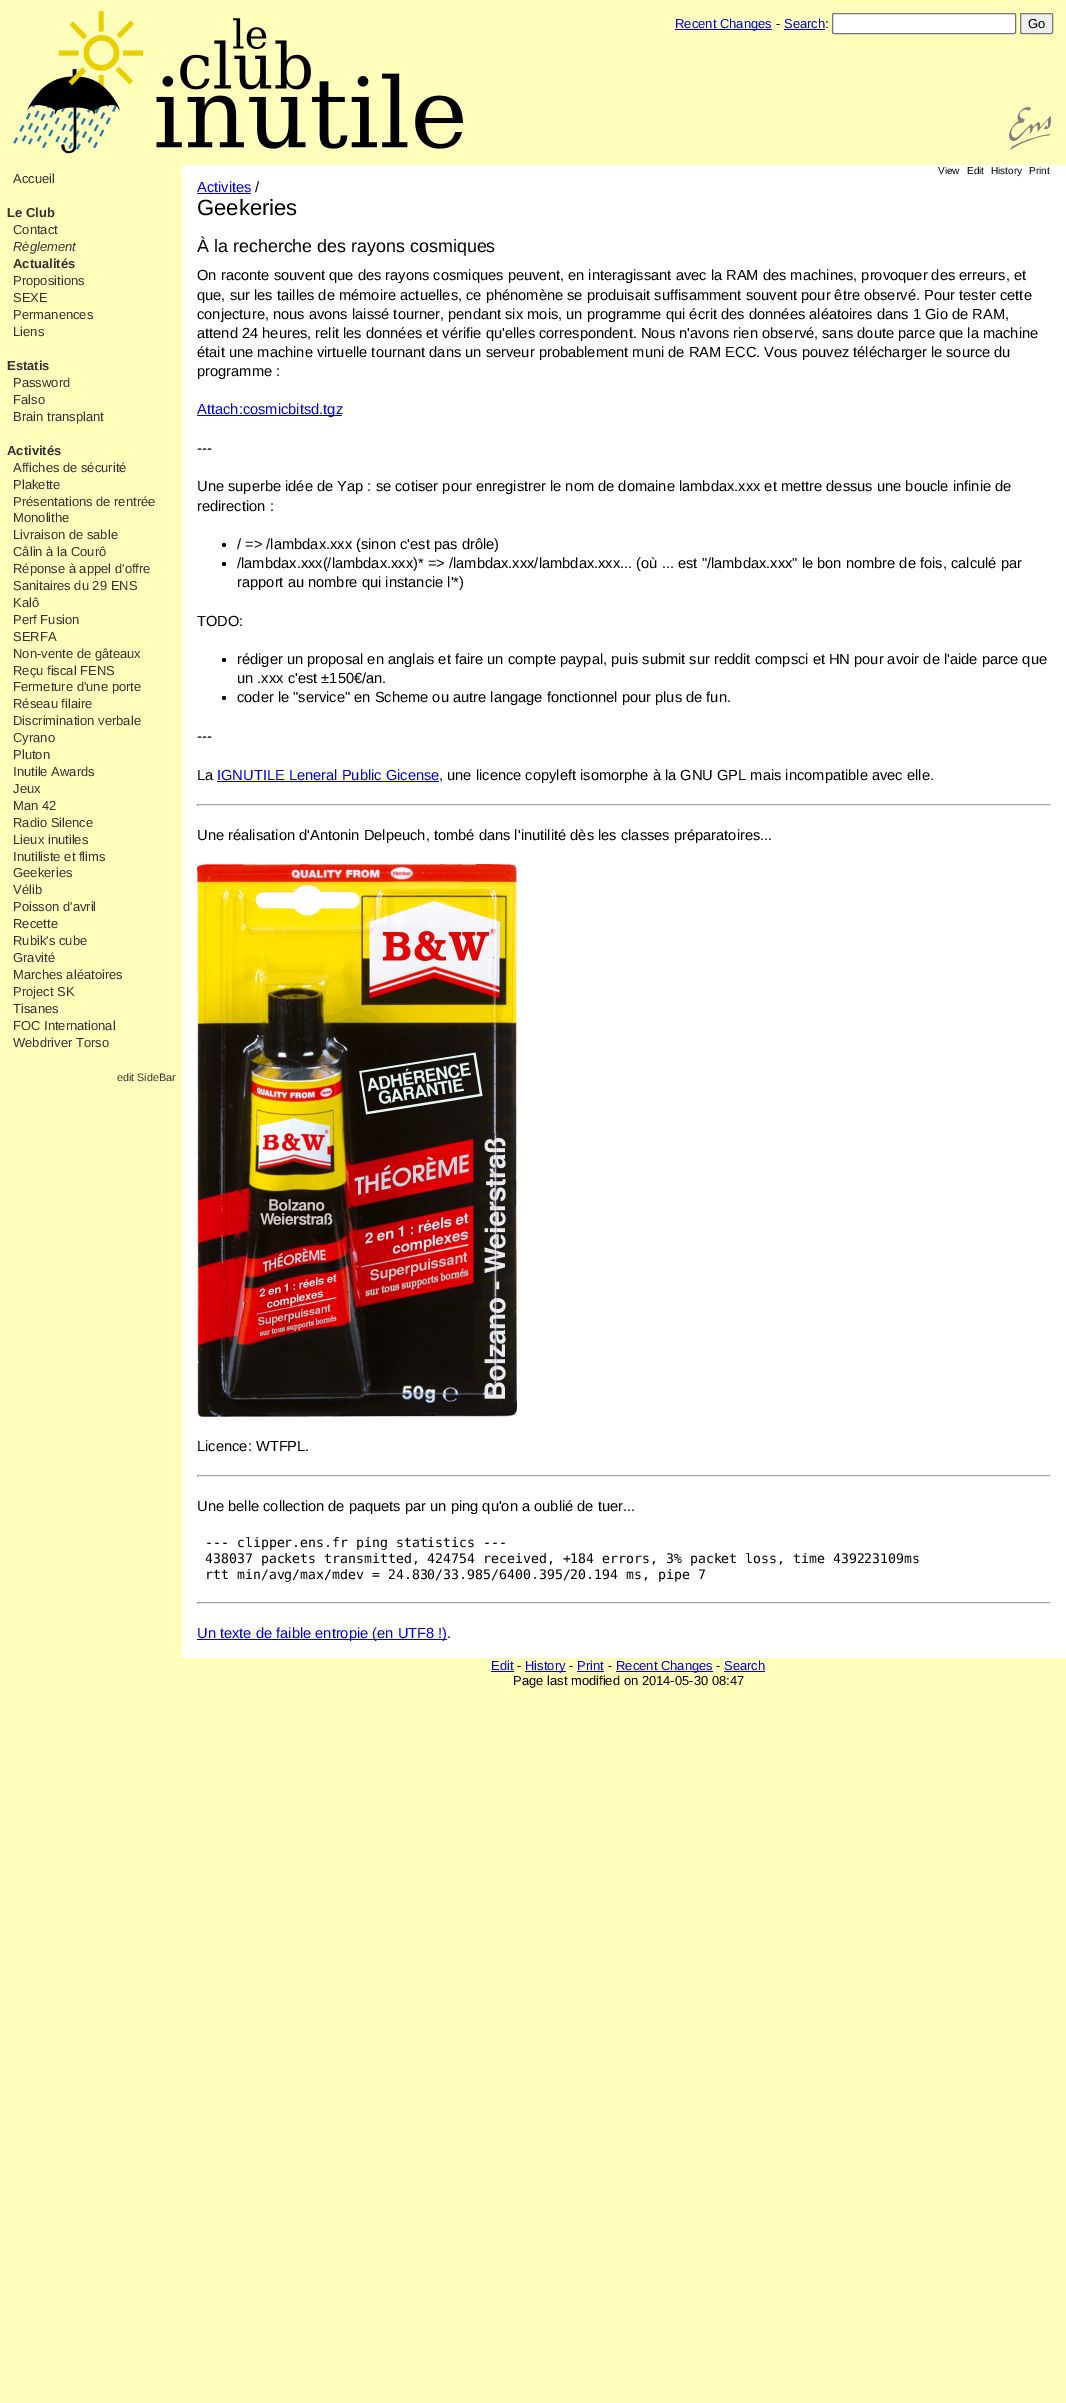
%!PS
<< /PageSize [1066 2403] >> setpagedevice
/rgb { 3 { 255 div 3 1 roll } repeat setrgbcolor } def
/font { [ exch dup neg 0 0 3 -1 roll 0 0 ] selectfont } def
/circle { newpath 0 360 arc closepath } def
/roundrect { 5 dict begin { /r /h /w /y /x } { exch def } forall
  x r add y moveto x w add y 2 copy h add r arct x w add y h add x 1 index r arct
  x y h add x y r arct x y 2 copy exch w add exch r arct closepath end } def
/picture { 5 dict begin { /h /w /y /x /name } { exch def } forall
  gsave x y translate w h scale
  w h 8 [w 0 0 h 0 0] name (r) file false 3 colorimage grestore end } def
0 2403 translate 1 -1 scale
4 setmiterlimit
255 255 187 rgb
0 0 1066 2403 rectfill
(img/1.rgb) 13 11 450 143 picture
(img/2.rgb) 1009 107 42 43 picture
0 0 238 rgb
675 29 97 1 rectfill
784 29 41 1 rectfill
255 255 255 rgb
832.5 13.5 183 20 1.5 roundrect gsave fill grestore
118 118 118 rgb
stroke
239 239 239 rgb
1020.5 13.5 32 20 1.5 roundrect gsave fill grestore
118 118 118 rgb
stroke
[
  [182 165 884 1493 255 255 255]
  [197 193 54 1 0 0 238]
  [197 415 145 1 0 0 238]
] { aload pop rgb rectfill } forall
0 0 0 rgb
224 545 2 circle fill
224 564 2 circle fill
224 660 2 circle fill
224 698 2 circle fill
[
  [217 781 222 1 0 0 238]
  [197 804 854 1 159 159 159]
  [1050 804 1 2 238 238 238]
  [197 805 854 1 238 238 238]
  [197 804 1 2 159 159 159]
] { aload pop rgb rectfill } forall
(img/3.rgb) 197 864 320 553 picture
[
  [197 1475 854 1 159 159 159]
  [1050 1475 1 2 238 238 238]
  [197 1476 854 1 238 238 238]
  [197 1475 1 2 159 159 159]
  [197 1602 854 1 159 159 159]
  [1050 1602 1 2 238 238 238]
  [197 1603 854 1 238 238 238]
  [197 1602 1 2 159 159 159]
  [197 1639 250 1 0 0 238]
  [491 1671 23 1 0 0 238]
  [525 1671 41 1 0 0 238]
  [577 1671 27 1 0 0 238]
  [616 1671 97 1 0 0 238]
  [724 1671 41 1 0 0 238]
] { aload pop rgb rectfill } forall
/LiberationSans-Regular 13 font
675 28 moveto (Recent Changes) show
0 0 0 rgb
776 28 moveto (-) show
0 0 238 rgb
784 28 moveto (Search) show
0 0 0 rgb
825 28 moveto (:) show
1028 28 moveto (Go) show
51 51 51 rgb
13 183 moveto (Accueil) show
/LiberationSans-Bold 13 font
7 217 moveto (Le Club) show
/LiberationSans-Regular 13 font
13 234 moveto (Contact) show
/LiberationSans-Italic 13 font
13 251 moveto (Règlement) show
/LiberationSans-Bold 13 font
13 268 moveto (Actualités) show
/LiberationSans-Regular 13 font
[
  [(Propositions) 13 285]
  [(SEXE) 13 302]
  [(Permanences) 13 319]
  [(Liens) 13 336]
] { aload pop moveto show } forall
/LiberationSans-Bold 13 font
7 370 moveto (Estatis) show
/LiberationSans-Regular 13 font
[
  [(Password) 13 387]
  [(Falso) 13 404]
  [(Brain transplant) 13 421]
] { aload pop moveto show } forall
/LiberationSans-Bold 13 font
7 455 moveto (Activités) show
/LiberationSans-Regular 13 font
[
  [(Affiches de sécurité) 13 472]
  [(Plakette) 13 489]
  [(Présentations de rentrée) 13 506]
  [(Monolithe) 13 522]
  [(Livraison de sable) 13 539]
  [(Câlin à la Courô) 13 556]
  [(Réponse à appel d'offre) 13 573]
  [(Sanitaires du 29 ENS) 13 590]
  [(Kalô) 13 607]
  [(Perf Fusion) 13 624]
  [(SERFA) 13 641]
  [(Non-vente de gâteaux) 13 658]
  [(Reçu fiscal FENS) 13 675]
  [(Fermeture d'une porte) 13 691]
  [(Réseau filaire) 13 708]
  [(Discrimination verbale) 13 725]
  [(Cyrano) 13 742]
  [(Pluton) 13 759]
  [(Inutile Awards) 13 776]
  [(Jeux) 13 793]
  [(Man 42) 13 810]
  [(Radio Silence) 13 827]
  [(Lieux inutiles) 13 844]
  [(Inutiliste et flims) 13 861]
  [(Geekeries) 13 877]
  [(Vélib) 13 894]
  [(Poisson d'avril) 13 911]
  [(Recette) 13 928]
  [(Rubik's cube) 13 945]
  [(Gravité) 13 962]
  [(Marches aléatoires) 13 979]
  [(Project SK) 13 996]
  [(Tisanes) 13 1013]
  [(FOC International) 13 1030]
  [(Webdriver Torso) 13 1047]
] { aload pop moveto show } forall
/LiberationSans-Regular 10.75 font
117 1081 moveto (edit SideBar) show
/LiberationSans-Regular 10 font
0 0 0 rgb
[
  [(View) 938 174]
  [(Edit) 967 174]
  [(History) 991 174]
  [(Print) 1029 174]
] { aload pop moveto show } forall
/LiberationSans-Regular 14.67 font
0 0 238 rgb
197 192 moveto (Activites) show
0 0 0 rgb
255 192 moveto (/) show
/LiberationSans-Regular 22 font
197 215 moveto (Geekeries) show
/LiberationSans-Regular 17.9 font
197 252 moveto (À la recherche des rayons cosmiques) show
/LiberationSans-Regular 14.67 font
[
  [(On raconte souvent que des rayons cosmiques peuvent, en interagissant avec la RAM des machines, provoquer des erreurs, et) 197 280]
  [(que, sur les tailles de mémoire actuelles, ce phénomène se produisait suffisamment souvent pour être observé. Pour tester cette) 197 300]
  [(conjecture, nous avons laissé tourner, pendant six mois, un programme qui écrit des données aléatoires dans 1 Gio de RAM,) 197 319]
  [(attend 24 heures, relit les données et vérifie qu'elles correspondent. Nous n'avons rien observé, sans doute parce que la machine) 197 338]
  [(était une machine virtuelle tournant dans un serveur probablement muni de RAM ECC. Vous pouvez télécharger le source du) 197 357]
  [(programme :) 197 376]
] { aload pop moveto show } forall
0 0 238 rgb
197 414 moveto (Attach:cosmicbitsd.tgz) show
0 0 0 rgb
[
  [(---) 197 453]
  [(Une superbe idée de Yap : se cotiser pour enregistrer le nom de domaine lambdax.xxx et mettre dessus une boucle infinie de) 197 491]
  [(redirection :) 197 511]
  [(/ => /lambdax.xxx \(sinon c'est pas drôle\)) 237 549]
  [(/lambdax.xxx\(/lambdax.xxx\)* => /lambdax.xxx/lambdax.xxx... \(où ... est "/lambdax.xxx" le bon nombre de fois, calculé par) 237 568]
  [(rapport au nombre qui instancie l'*\)) 237 587]
  [(TODO:) 197 626]
  [(rédiger un proposal en anglais et faire un compte paypal, puis submit sur reddit compsci et HN pour avoir de l'aide parce que) 237 664]
  [(un .xxx c'est ±150€/an.) 237 683]
  [(coder le "service" en Scheme ou autre langage fonctionnel pour plus de fun.) 237 702]
  [(---) 197 741]
  [(La) 197 780]
] { aload pop moveto show } forall
0 0 238 rgb
217 780 moveto (IGNUTILE Leneral Public Gicense) show
0 0 0 rgb
[
  [(, une licence copyleft isomorphe à la GNU GPL mais incompatible avec elle.) 439 780]
  [(Une réalisation d'Antonin Delpeuch, tombé dans l'inutilité dès les classes préparatoires...) 197 840]
  [(Licence: WTFPL.) 197 1451]
  [(Une belle collection de paquets par un ping qu'on a oublié de tuer...) 197 1511]
] { aload pop moveto show } forall
/DejaVuSansMono-Regular 13.2 font
[
  [(--- clipper.ens.fr ping statistics ---) 205 1547]
  [(438037 packets transmitted, 424754 received, +184 errors, 3% packet loss, time 439223109ms) 205 1563]
  [(rtt min/avg/max/mdev = 24.830/33.985/6400.395/20.194 ms, pipe 7) 205 1579]
] { aload pop moveto show } forall
/LiberationSans-Regular 14.67 font
0 0 238 rgb
197 1638 moveto (Un texte de faible entropie \(en UTF8 !\)) show
0 0 0 rgb
447 1638 moveto (.) show
/LiberationSans-Regular 13 font
0 0 238 rgb
491 1670 moveto (Edit) show
0 0 0 rgb
517 1670 moveto (-) show
0 0 238 rgb
525 1670 moveto (History) show
0 0 0 rgb
569 1670 moveto (-) show
0 0 238 rgb
577 1670 moveto (Print) show
0 0 0 rgb
608 1670 moveto (-) show
0 0 238 rgb
616 1670 moveto (Recent Changes) show
0 0 0 rgb
716 1670 moveto (-) show
0 0 238 rgb
724 1670 moveto (Search) show
0 0 0 rgb
513 1685 moveto (Page last modified on 2014-05-30 08:47) show
showpage
